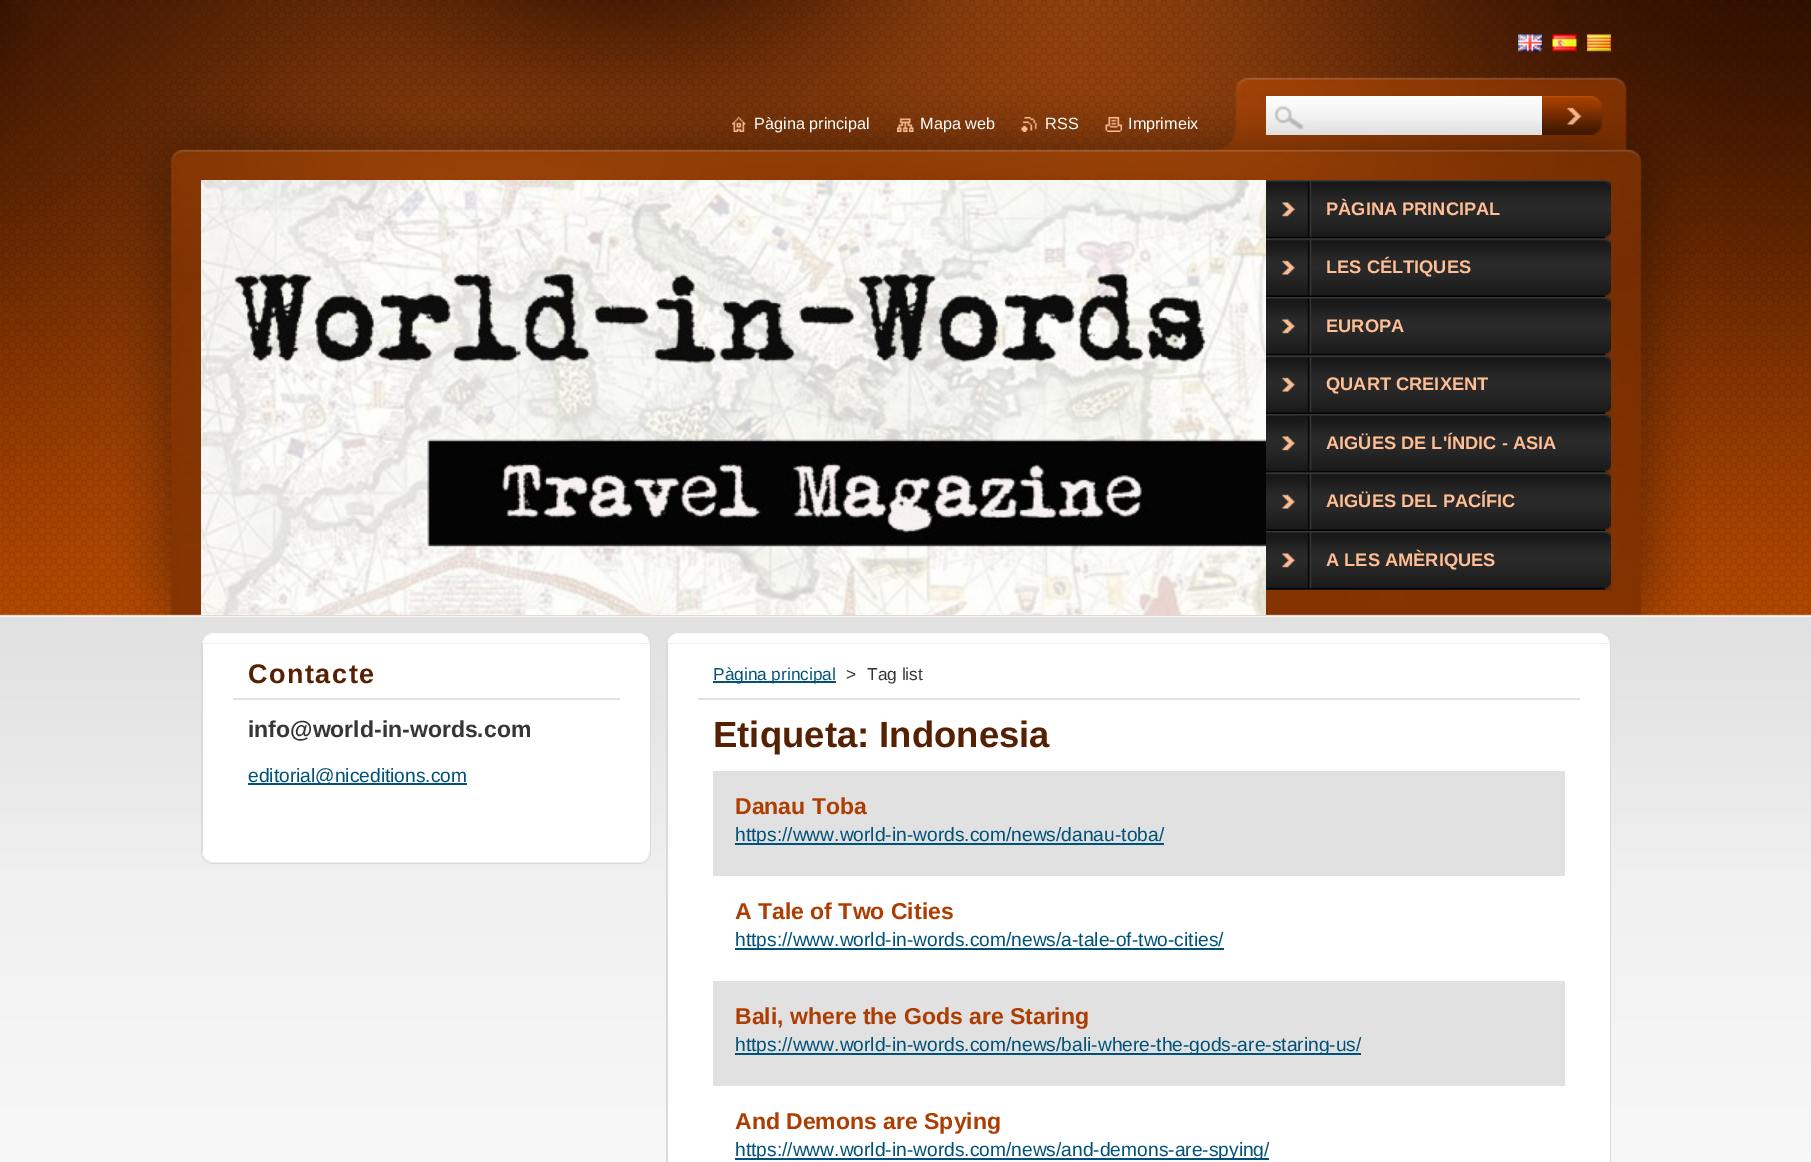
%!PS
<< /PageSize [1811 1162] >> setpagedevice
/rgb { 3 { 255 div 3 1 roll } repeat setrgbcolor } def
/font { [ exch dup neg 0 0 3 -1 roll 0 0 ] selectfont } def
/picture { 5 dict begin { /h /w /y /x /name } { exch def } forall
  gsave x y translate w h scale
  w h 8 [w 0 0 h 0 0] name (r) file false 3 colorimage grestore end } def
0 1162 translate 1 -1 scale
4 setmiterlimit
255 255 255 rgb
0 0 1811 1162 rectfill
(img/1.rgb) 0 616 1811 546 picture
(img/2.rgb) 0 0 1811 617 picture
(img/3.rgb) 1518 34 24 18 picture
(img/4.rgb) 1552 34 25 18 picture
(img/5.rgb) 1587 34 24 18 picture
(img/6.rgb) 732 117 14 15 picture
(img/7.rgb) 897 118 17 14 picture
(img/8.rgb) 1021 117 16 15 picture
(img/9.rgb) 1105 117 17 15 picture
1266 96 276 2 rectfill
(img/10.rgb) 1266 98 276 37 picture
(img/11.rgb) 1542 96 60 39 picture
(img/12.rgb) 201 180 1065 435 picture
(img/13.rgb) 1266 180 345 59 picture
(img/14.rgb) 1266 238 345 59 picture
(img/13.rgb) 1266 297 345 59 picture
(img/14.rgb) 1266 355 345 59 picture
(img/13.rgb) 1266 414 345 59 picture
(img/14.rgb) 1266 472 345 59 picture
42 42 42 rgb
1266 589 345 1 rectfill
(img/13.rgb) 1266 531 345 59 picture
(img/15.rgb) 201 633 450 11 picture
[
  [203 644 447 208 255 255 255]
  [650 644 1 208 218 218 218]
  [201 644 2 208 218 218 218]
  [233 698 387 2 225 225 225]
  [248 783 219 2 0 82 121]
] { aload pop rgb rectfill } forall
(img/16.rgb) 201 852 450 12 picture
(img/17.rgb) 666 633 945 11 picture
[
  [668 644 942 518 255 255 255]
  [1610 644 1 518 218 218 218]
  [666 644 2 518 218 218 218]
  [698 698 882 2 225 225 225]
  [713 681 123 2 0 82 121]
  [713 771 852 105 225 225 225]
  [735 843 429 2 0 82 121]
  [735 948 489 2 0 82 121]
  [713 981 852 105 225 225 225]
  [735 1053 626 2 0 82 121]
  [735 1158 534 2 0 82 121]
] { aload pop rgb rectfill } forall
/LiberationSans-Regular 16.25 font
255 255 255 rgb
[
  [(Pàgina principal) 754 129]
  [(Mapa web) 920 129]
  [(RSS) 1045 129]
  [(Imprimeix) 1128 129]
] { aload pop moveto show } forall
/LiberationSans-Bold 18.25 font
255 190 147 rgb
[
  [(PÀGINA PRINCIPAL) 1326 215]
  [(LES CÉLTIQUES) 1326 273]
  [(EUROPA) 1326 332]
  [(QUART CREIXENT) 1326 390]
  [(AIGÜES DE L'ÍNDIC - ASIA) 1326 449]
  [(AIGÜES DEL PACÍFIC) 1326 507]
  [(A LES AMÈRIQUES) 1326 566]
] { aload pop moveto show } forall
/LiberationSans-Bold 27 font
86 32 3 rgb
248 683 moveto 1.5 0 (Contacte) ashow
/LiberationSans-Bold 23 font
54 54 54 rgb
248 737 moveto (info@world-in-words.com) show
/LiberationSans-Regular 19.2 font
0 82 121 rgb
248 782 moveto (editorial@niceditions.com) show
/LiberationSans-Regular 17.25 font
713 680 moveto (Pàgina principal) show
54 54 54 rgb
846 680 moveto (>) show
867 680 moveto (Tag list) show
/LiberationSans-Bold 36.5 font
86 32 3 rgb
713 747 moveto (Etiqueta: Indonesia) show
/LiberationSans-Bold 23 font
173 61 1 rgb
735 814 moveto (Danau Toba) show
/LiberationSans-Regular 19.2 font
0 82 121 rgb
735 841 moveto (https://www.world-in-words.com/news/danau-toba/) show
/LiberationSans-Bold 23 font
173 61 1 rgb
735 919 moveto (A Tale of Two Cities) show
/LiberationSans-Regular 19.2 font
0 82 121 rgb
735 946 moveto (https://www.world-in-words.com/news/a-tale-of-two-cities/) show
/LiberationSans-Bold 23 font
173 61 1 rgb
735 1024 moveto (Bali, where the Gods are Staring) show
/LiberationSans-Regular 19.2 font
0 82 121 rgb
735 1051 moveto (https://www.world-in-words.com/news/bali-where-the-gods-are-staring-us/) show
/LiberationSans-Bold 23 font
173 61 1 rgb
735 1129 moveto (And Demons are Spying) show
/LiberationSans-Regular 19.2 font
0 82 121 rgb
735 1156 moveto (https://www.world-in-words.com/news/and-demons-are-spying/) show
showpage
